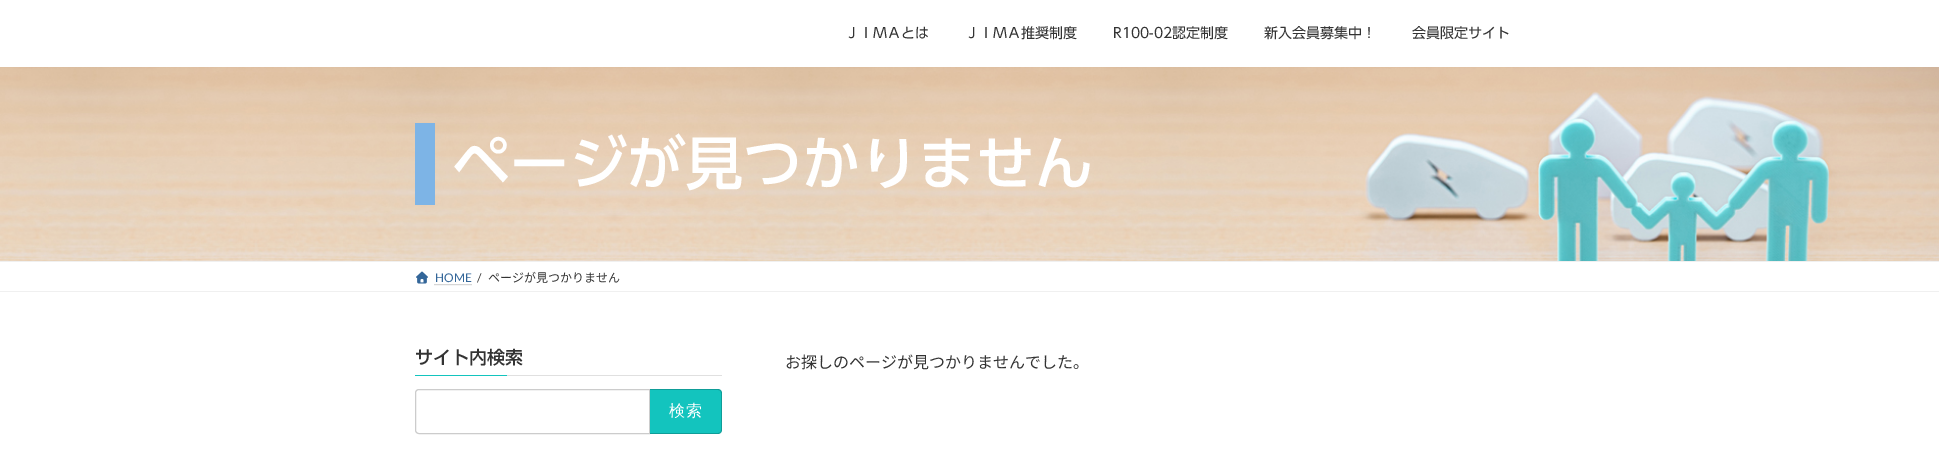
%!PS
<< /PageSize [1939 449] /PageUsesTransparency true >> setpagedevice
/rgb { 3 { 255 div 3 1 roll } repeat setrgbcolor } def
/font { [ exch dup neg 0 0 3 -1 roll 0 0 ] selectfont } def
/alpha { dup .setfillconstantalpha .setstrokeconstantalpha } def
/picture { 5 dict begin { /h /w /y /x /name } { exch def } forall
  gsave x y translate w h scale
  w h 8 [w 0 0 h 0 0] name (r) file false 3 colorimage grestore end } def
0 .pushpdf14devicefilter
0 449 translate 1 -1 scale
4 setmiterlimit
255 255 255 rgb
0 0 1939 449 rectfill
(img/1.rgb) 0 67 1939 194 picture
[
  [415 123 20 82 125 180 230]
  [0 261 1939 1 240 240 240]
  [0 291 1939 1 240 240 240]
] { aload pop rgb rectfill } forall
(img/2.rgb) 416 271 12 13 picture
179 179 179 rgb
[1 1] 0 setdash
434.5 284.5 moveto 471.5 284.5 lineto stroke
224 224 224 rgb
507 375 215 1 rectfill
19 196 190 rgb
415 375 92 1 rectfill
204 204 204 rgb
[] 0 setdash
419 389.5 moveto 649.5 389.5 lineto 649.5 433.5 lineto 419 433.5 lineto 417 433.5 415.5 432 415.5 430 curveto 415.5 393 lineto 415.5 391 417 389.5 419 389.5 curveto closepath stroke
19 196 190 rgb
650 389 moveto 718 389 lineto 720 389 722 391 722 393 curveto 722 430 lineto 722 432 720 434 718 434 curveto 650 434 lineto closepath fill
0.2 alpha
0 0 0 rgb
650 389 moveto 718 389 lineto 720 389 722 391 722 393 curveto 722 430 lineto 722 432 720 434 718 434 curveto 650 434 lineto closepath 650 390 moveto 718 390 lineto 720 390 721 391 721 393 curveto 721 430 lineto 721 432 720 433 718 433 curveto 650 433 lineto closepath eofill
/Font-Regular 14 font
1 alpha
51 51 51 rgb
[
  [(ＪＩＭＡとは) 845 38]
  [(ＪＩＭＡ推奨制度) 965 38]
  [(R100-02認定制度) 1113 38]
  [(新入会員募集中！) 1264 38]
  [(会員限定サイト) 1412 38]
] { aload pop moveto show } forall
/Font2-Medium 58.25 font
255 255 255 rgb
452 185 moveto (ページが見つかりません) show
/Lato-Regular 12 font
51 102 153 rgb
435 282 moveto (HOME) show
51 51 51 rgb
477 282 moveto (/) show
/NotoSansJP-Regular 12 font
488 282 moveto (ページが見つかりません) show
/Font-Medium 18 font
415 364 moveto (サイト内検索) show
/WenQuanYiZenHei-Medium 16 font
255 255 255 rgb
669 416 moveto 1 0 (検索) ashow
/NotoSansJP-Regular 16 font
51 51 51 rgb
785 368 moveto (お探しのページが見つかりませんでした。) show
.poppdf14devicefilter showpage
